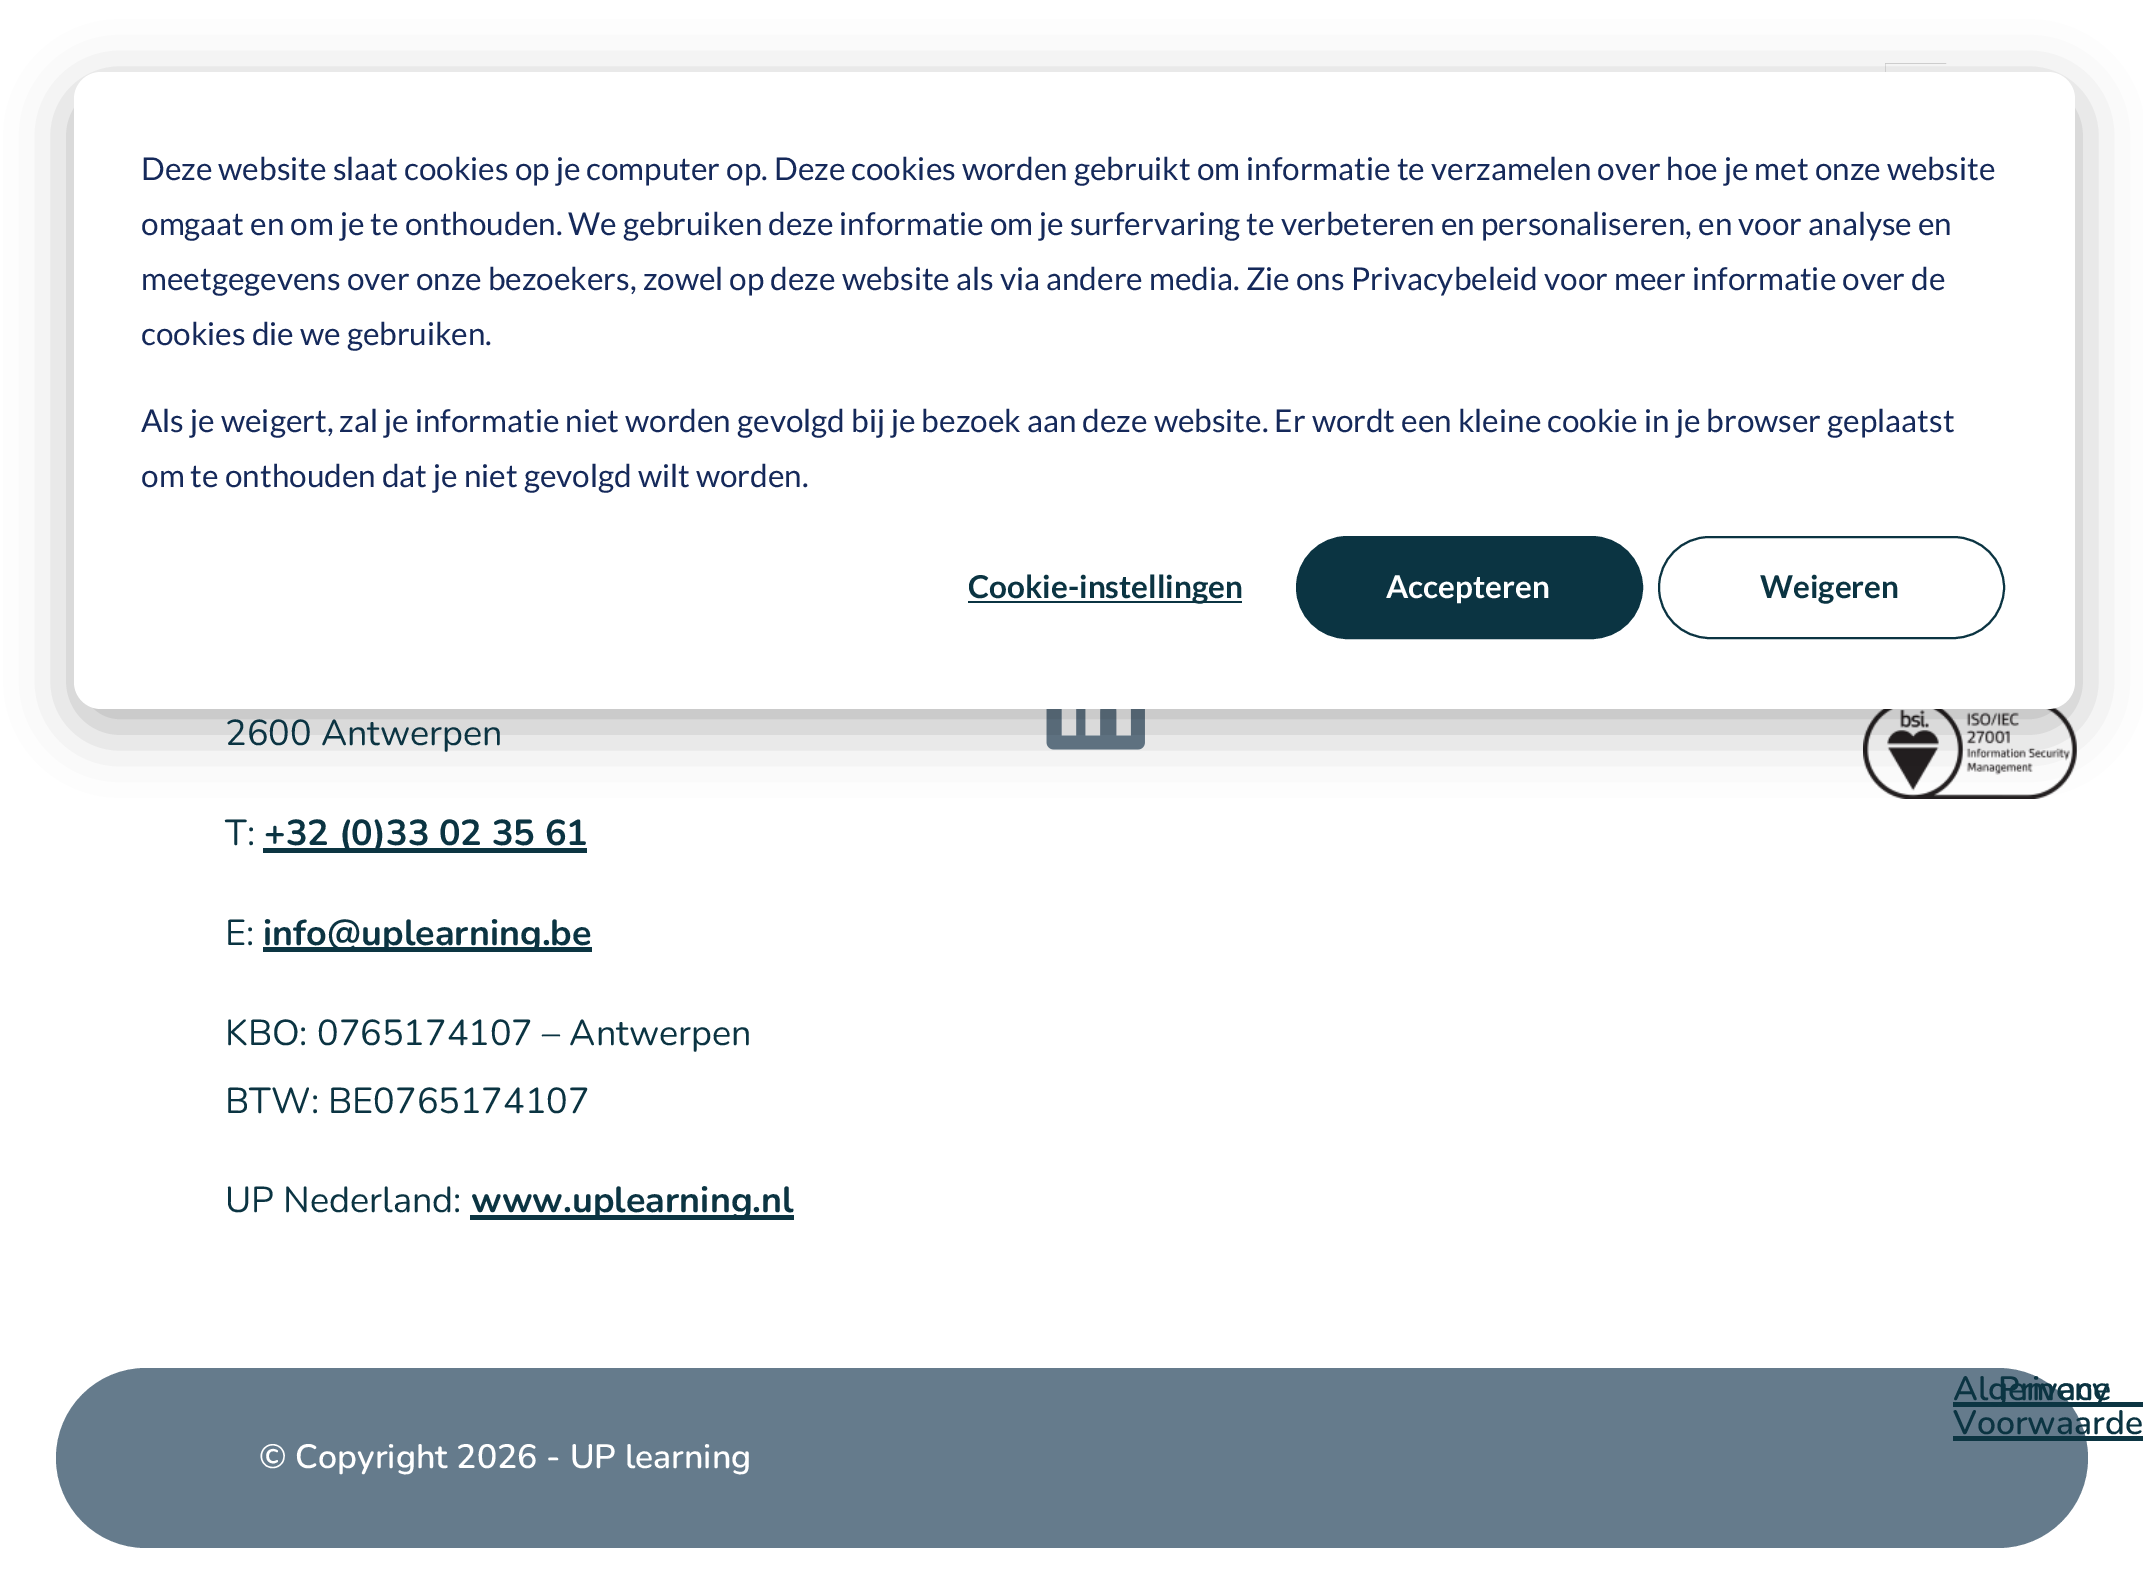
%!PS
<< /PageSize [2143 1579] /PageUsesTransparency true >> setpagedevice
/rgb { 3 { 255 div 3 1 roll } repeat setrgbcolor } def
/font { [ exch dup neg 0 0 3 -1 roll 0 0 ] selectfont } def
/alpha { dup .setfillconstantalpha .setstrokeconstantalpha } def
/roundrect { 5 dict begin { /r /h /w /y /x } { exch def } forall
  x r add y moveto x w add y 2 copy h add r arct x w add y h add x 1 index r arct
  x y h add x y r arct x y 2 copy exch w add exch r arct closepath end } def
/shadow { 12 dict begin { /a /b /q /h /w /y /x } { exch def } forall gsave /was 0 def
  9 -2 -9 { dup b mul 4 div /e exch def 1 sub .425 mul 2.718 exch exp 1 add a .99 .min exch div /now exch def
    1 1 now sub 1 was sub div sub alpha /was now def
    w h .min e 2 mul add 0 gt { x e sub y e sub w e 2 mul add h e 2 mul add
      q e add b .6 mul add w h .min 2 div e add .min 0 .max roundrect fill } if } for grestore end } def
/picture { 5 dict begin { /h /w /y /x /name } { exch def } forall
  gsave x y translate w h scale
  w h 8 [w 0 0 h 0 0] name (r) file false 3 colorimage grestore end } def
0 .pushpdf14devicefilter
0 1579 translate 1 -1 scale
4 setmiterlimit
255 255 255 rgb
0 0 2143 1579 rectfill
(img/1.rgb) 1885 63 62 9 picture
(img/2.rgb) 1046 709 99 41 picture
(img/3.rgb) 1863 707 214 92 picture
0 0 0 rgb
74 90 2001 637 27 31.5 0.28 shadow
255 255 255 rgb
74 72 2001 637 27 roundrect fill
11 52 66 rgb
968 601 274 2 rectfill
1297 537 345 101 50.5 roundrect gsave fill grestore
2 setlinewidth
stroke
1659 537 345 101 50.5 roundrect stroke
[
  [263 848 324 5 12 53 66]
  [263 947 329 5 12 53 66]
  [470 1215 324 5 12 53 66]
] { aload pop rgb rectfill } forall
101 123 140 rgb
56 1368 2032 180 90 roundrect fill
12 53 66 rgb
1953 1402 45 5 rectfill
1953 1436 190 5 rectfill
/Lato-Regular 31.5 font
21 41 90 rgb
[
  [(Deze website slaat cookies op je computer op. Deze cookies worden gebruikt om informatie te verzamelen over hoe je met onze website) 141 180]
  [(omgaat en om je te onthouden. We gebruiken deze informatie om je surfervaring te verbeteren en personaliseren, en voor analyse en) 141 235]
  [(meetgegevens over onze bezoekers, zowel op deze website als via andere media. Zie ons Privacybeleid voor meer informatie over de) 141 290]
  [(cookies die we gebruiken.) 141 345]
  [(Als je weigert, zal je informatie niet worden gevolgd bij je bezoek aan deze website. Er wordt een kleine cookie in je browser geplaatst) 141 432]
  [(om te onthouden dat je niet gevolgd wilt worden.) 141 487]
] { aload pop moveto show } forall
/Lato-Bold 31.5 font
11 52 66 rgb
968 598 moveto (Cookie-instellingen) show
255 255 255 rgb
1386 598 moveto (Accepteren) show
11 52 66 rgb
1760 598 moveto (Weigeren) show
/Nunito-Regular 36 font
225 745 moveto (2600 Antwerpen) show
225 845 moveto (T:) show
/Nunito-Bold 36 font
264 845 moveto (+32 \(0\)33 02 35 61) show
/Nunito-Regular 36 font
225 945 moveto (E:) show
/Nunito-Bold 36 font
263 945 moveto (info@uplearning.be) show
/Nunito-Regular 36 font
[
  [(KBO: 0765174107 – Antwerpen) 225 1045]
  [(BTW: BE0765174107) 225 1113]
  [(UP Nederland:) 225 1212]
] { aload pop moveto show } forall
/Nunito-Bold 36 font
471 1212 moveto (www.uplearning.nl) show
/Nunito-SemiBold 33.75 font
[
  [(Algemene) 1953 1400]
  [(Voorwaarde) 1953 1434]
  [(Privacy) 1998 1400]
] { aload pop moveto show } forall
12 53 66 rgb
1998 1402 145 5 rectfill
255 255 255 rgb
259 1468 moveto (© Copyright 2026 - UP learning) show
.poppdf14devicefilter showpage
